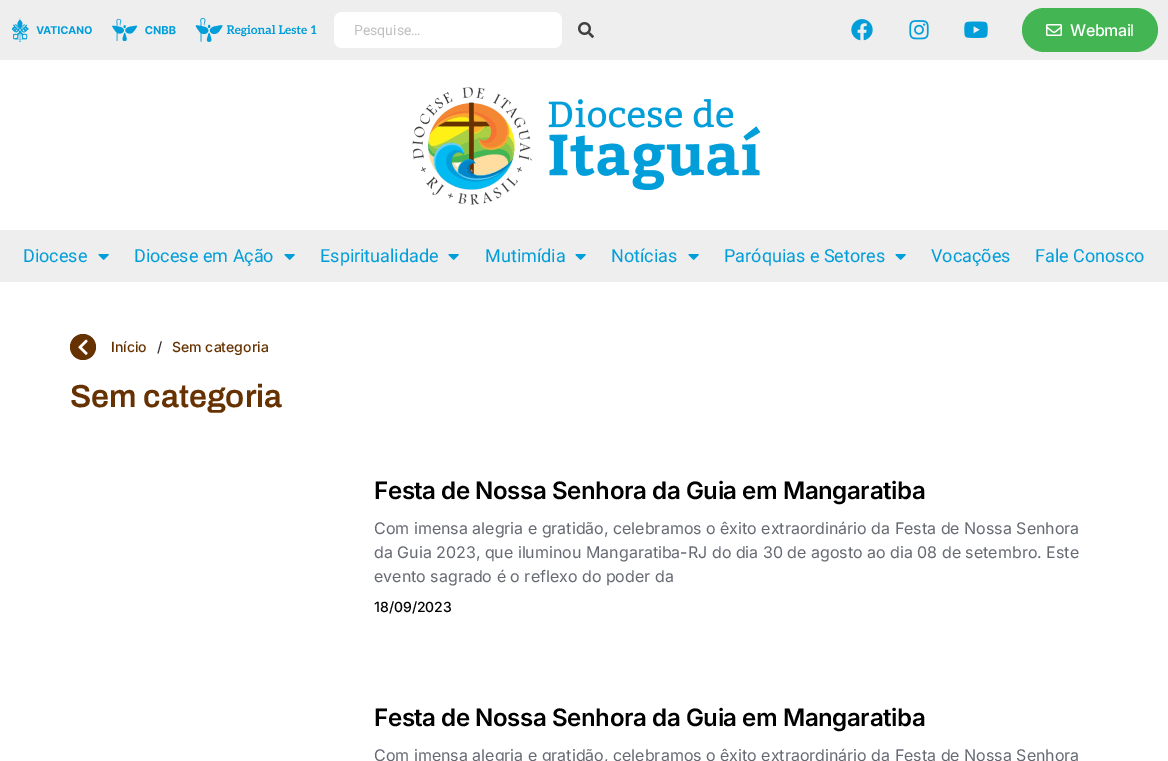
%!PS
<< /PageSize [1168 761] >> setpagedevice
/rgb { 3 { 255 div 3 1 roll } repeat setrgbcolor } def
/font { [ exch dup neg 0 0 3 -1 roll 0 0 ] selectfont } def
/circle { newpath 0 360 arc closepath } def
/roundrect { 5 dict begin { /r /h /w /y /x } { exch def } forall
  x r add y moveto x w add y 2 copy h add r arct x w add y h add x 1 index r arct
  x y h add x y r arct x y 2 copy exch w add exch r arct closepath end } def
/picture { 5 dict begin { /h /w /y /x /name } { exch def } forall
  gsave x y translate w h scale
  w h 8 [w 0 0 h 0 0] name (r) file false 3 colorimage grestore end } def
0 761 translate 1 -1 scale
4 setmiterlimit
255 255 255 rgb
0 0 1168 761 rectfill
238 238 238 rgb
0 0 1168 60 rectfill
(img/1.rgb) 12 18 80 24 picture
(img/2.rgb) 112 19 64 22 picture
(img/3.rgb) 195 18 122 24 picture
255 255 255 rgb
334 12 228 36 8 roundrect fill
(img/4.rgb) 578 22 16 16 picture
(img/5.rgb) 851 19 22 22 picture
(img/6.rgb) 909 20 20 20 picture
(img/7.rgb) 964 21 24 17 picture
67 181 83 rgb
1022 8 136 44 22 roundrect fill
(img/8.rgb) 1046 24 16 12 picture
(img/9.rgb) 412 87 349 118 picture
238 238 238 rgb
0 230 1168 52 rectfill
(img/10.rgb) 98 254 11 6 picture
(img/10.rgb) 284 254 11 6 picture
(img/10.rgb) 448 254 11 6 picture
(img/10.rgb) 575 254 11 6 picture
(img/10.rgb) 688 254 11 6 picture
(img/10.rgb) 895 254 11 6 picture
102 50 1 rgb
83 347 13 circle fill
(img/11.rgb) 78 339 10 16 picture
/Roboto-Regular 14 font
191 191 191 rgb
354 35 moveto (Pesquise…) show
/Inter-Medium 16 font
255 255 255 rgb
1070 36 moveto -0.4 0 (Webmail) ashow
/Roboto-Regular 18 font
2 158 217 rgb
[
  [(Diocese) 23 262]
  [(Diocese em Ação) 134 262]
  [(Espiritualidade) 320 262]
  [(Mutimídia) 485 262]
  [(Notícias) 611 262]
  [(Paróquias e Setores) 724 262]
  [(Vocações) 931 262]
  [(Fale Conosco) 1035 262]
] { aload pop moveto show } forall
/Inter-Medium 14 font
102 50 1 rgb
111 352 moveto (Início) show
51 51 51 rgb
157 352 moveto (/) show
102 50 1 rgb
172 352 moveto (Sem categoria) show
/Archivo-SemiBold 32 font
70 407 moveto (Sem categoria) show
/Inter-SemiBold 24 font
0 0 0 rgb
374 499 moveto -0.4 0 (Festa de Nossa Senhora da Guia em Mangaratiba) ashow
/Inter-Regular 16 font
101 105 113 rgb
[
  [(Com imensa alegria e gratidão, celebramos o êxito extraordinário da Festa de Nossa Senhora) 374 534]
  [(da Guia 2023, que iluminou Mangaratiba-RJ do dia 30 de agosto ao dia 08 de setembro. Este) 374 558]
  [(evento sagrado é o reflexo do poder da) 374 582]
] { aload pop moveto show } forall
/Inter-Medium 14 font
0 0 0 rgb
374 612 moveto (18/09/2023) show
/Inter-SemiBold 24 font
374 726 moveto -0.4 0 (Festa de Nossa Senhora da Guia em Mangaratiba) ashow
/Inter-Regular 16 font
101 105 113 rgb
374 761 moveto (Com imensa alegria e gratidão, celebramos o êxito extraordinário da Festa de Nossa Senhora) show
showpage
